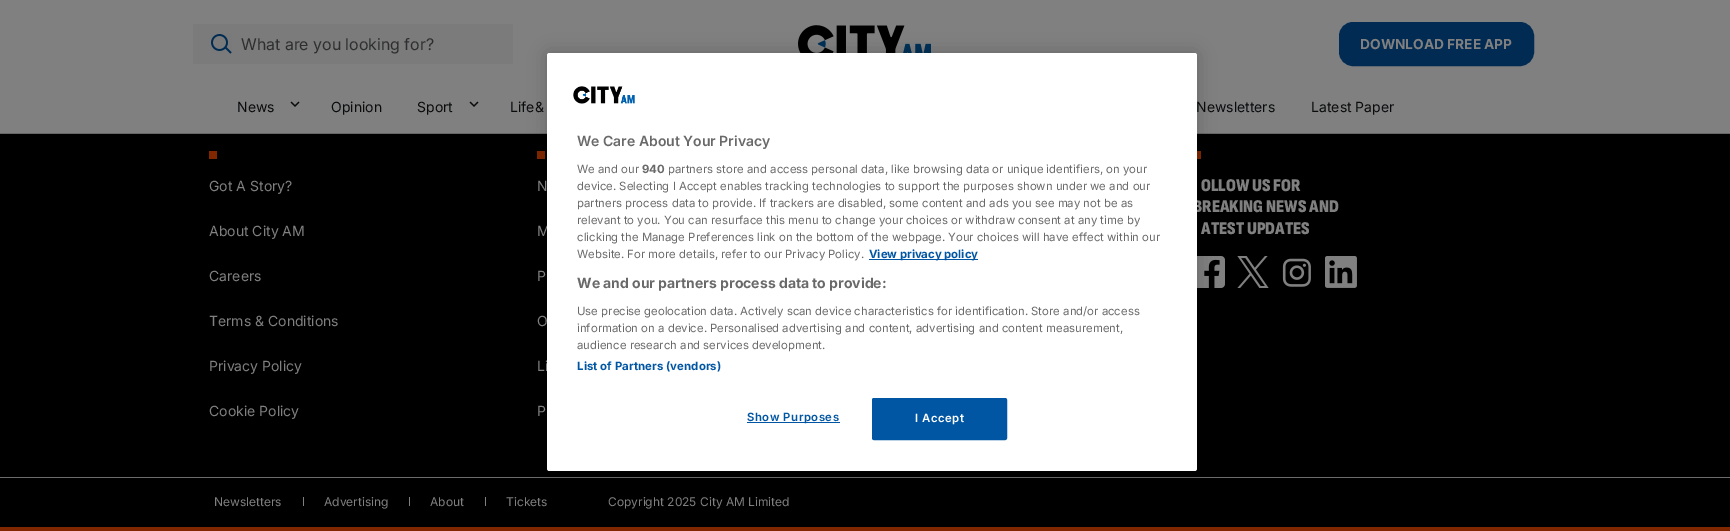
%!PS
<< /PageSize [1730 531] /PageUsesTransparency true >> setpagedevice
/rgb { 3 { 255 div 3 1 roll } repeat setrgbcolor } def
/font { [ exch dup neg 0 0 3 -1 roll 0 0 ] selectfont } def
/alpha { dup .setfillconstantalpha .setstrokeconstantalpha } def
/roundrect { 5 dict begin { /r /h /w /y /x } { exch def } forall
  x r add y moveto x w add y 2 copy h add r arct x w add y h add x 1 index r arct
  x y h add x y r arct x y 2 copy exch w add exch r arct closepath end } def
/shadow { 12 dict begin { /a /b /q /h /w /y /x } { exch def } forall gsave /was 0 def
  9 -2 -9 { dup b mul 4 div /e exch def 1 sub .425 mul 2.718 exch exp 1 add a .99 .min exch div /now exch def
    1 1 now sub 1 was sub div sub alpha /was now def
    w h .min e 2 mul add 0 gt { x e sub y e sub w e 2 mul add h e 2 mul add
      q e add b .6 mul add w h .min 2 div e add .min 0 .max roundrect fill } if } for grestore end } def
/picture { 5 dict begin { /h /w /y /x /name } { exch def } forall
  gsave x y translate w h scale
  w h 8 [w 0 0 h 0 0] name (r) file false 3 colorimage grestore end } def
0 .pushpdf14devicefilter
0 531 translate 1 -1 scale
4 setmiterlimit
0 0 0 rgb
0 0 1730 531 rectfill
[
  [0 0 1730 133 128 128 128]
  [0 133 1730 1 102 102 102]
  [193 24 320 40 123 123 123]
] { aload pop rgb rectfill } forall
(img/1.rgb) 211 34 21 20 picture
(img/2.rgb) 798 25 133 28 picture
1 43 82 rgb
1340 23 193 42 13 roundrect gsave fill grestore
2 setlinewidth
stroke
(img/3.rgb) 290 101 10 6 picture
(img/3.rgb) 469 101 10 6 picture
128 39 0 rgb
537 151 8 8 rectfill
1193 151 8 8 rectfill
(img/5.rgb) 1197 256 28 32 picture
107 108 108 rgb
0 477 1730 1 rectfill
0 0 0 rgb
547 53 650 418 2.5 9 0.2 shadow
128 39 0 rgb
0 527 1730 4 rectfill
209 151 8 8 rectfill
(img/6.rgb) 1237 256 32 32 picture
(img/7.rgb) 1282 258 29 29 picture
(img/8.rgb) 1325 256 32 32 picture
[
  [303 497 1 9 128 128 128]
  [409 497 1 9 128 128 128]
  [485 497 1 9 128 128 128]
] { aload pop rgb rectfill } forall
/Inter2-Regular 16 font
45 46 47 rgb
241 50 moveto (What are you looking for?) show
/Inter-Bold 13.75 font
128 128 128 rgb
1360 49 moveto (DOWNLOAD FREE APP) show
/Inter-Regular 14 font
9 11 12 rgb
[
  [(News) 237 112]
  [(Opinion) 331 112]
  [(Sport) 417 112]
  [(Life&) 510 112]
  [(Newsletters) 1196 112]
  [(Latest Paper) 1311 112]
] { aload pop moveto show } forall
128 128 128 rgb
[
  [(Got A Story?) 209 191]
  [(About City AM) 209 236]
  [(Careers) 209 281]
  [(Terms & Conditions) 209 326]
  [(Privacy Policy) 209 371]
  [(Cookie Policy) 209 416]
  [(N) 537 191]
  [(M) 537 236]
  [(P) 537 281]
  [(O) 537 326]
  [(Li) 537 371]
  [(P) 537 416]
] { aload pop moveto show } forall
/SofiaSansCondensed-Black 18 font
1201 191 moveto (OLLOW US FOR) show
1193 212 moveto (BREAKING NEWS AND) show
255 255 255 rgb
547 53 650 418 2.5 roundrect fill
1 86 164 rgb
747 422 93 1 rectfill
/Inter-SemiBold 11.38 font
747 421 moveto 0.5 0 (Show Purposes) ashow
872.5 398.5 134 41 1.5 roundrect gsave fill grestore
1 setlinewidth
stroke
255 255 255 rgb
915 422 moveto 0.5 0 (I Accept) ashow
(img/4.rgb) 573 86 62 18 picture
/Inter-Bold 11.38 font
1 86 164 rgb
577 370 moveto 0.1 0 (List of Partners \(vendors\)) ashow
/Inter-Regular 11.38 font
105 105 105 rgb
[
  [(audience research and services development.) 577 349]
  [(information on a device. Personalised advertising and content, advertising and content measurement,) 577 332]
  [(Use precise geolocation data. Actively scan device characteristics for identification. Store and/or access) 577 315]
] { aload pop moveto show } forall
/Inter-Bold 14 font
577 288 moveto (We and our partners process data to provide:) show
1 86 164 rgb
869 259 109 1 rectfill
/Inter-Bold 11.38 font
869 258 moveto (View privacy policy) show
/Inter-Regular 11.38 font
105 105 105 rgb
[
  [(Website. For more details, refer to our Privacy Policy.) 577 258]
  [(clicking the Manage Preferences link on the bottom of the webpage. Your choices will have effect within our) 577 241]
  [(relevant to you. You can resurface this menu to change your choices or withdraw consent at any time by) 577 224]
  [(partners process data to provide. If trackers are disabled, some content and ads you see may not be as) 577 207]
  [(device. Selecting I Accept enables tracking technologies to support the purposes shown under we and our) 577 190]
  [(partners store and access personal data, like browsing data or unique identifiers, on your) 668 173]
] { aload pop moveto show } forall
/Inter-Bold 11.38 font
642 173 moveto (940) show
/Inter-Regular 11.38 font
577 173 moveto (We and our) show
/Inter-SemiBold 14 font
577 146 moveto (We Care About Your Privacy) show
/SofiaSansCondensed-Black 18 font
128 128 128 rgb
1201 234 moveto (ATEST UPDATES) show
/Inter-Regular 12 font
[
  [(Newsletters) 214 506]
  [(Advertising) 324 506]
  [(About) 430 506]
  [(Tickets) 506 506]
  [(Copyright 2025 City AM Limited) 608 506]
] { aload pop moveto show } forall
.poppdf14devicefilter showpage
